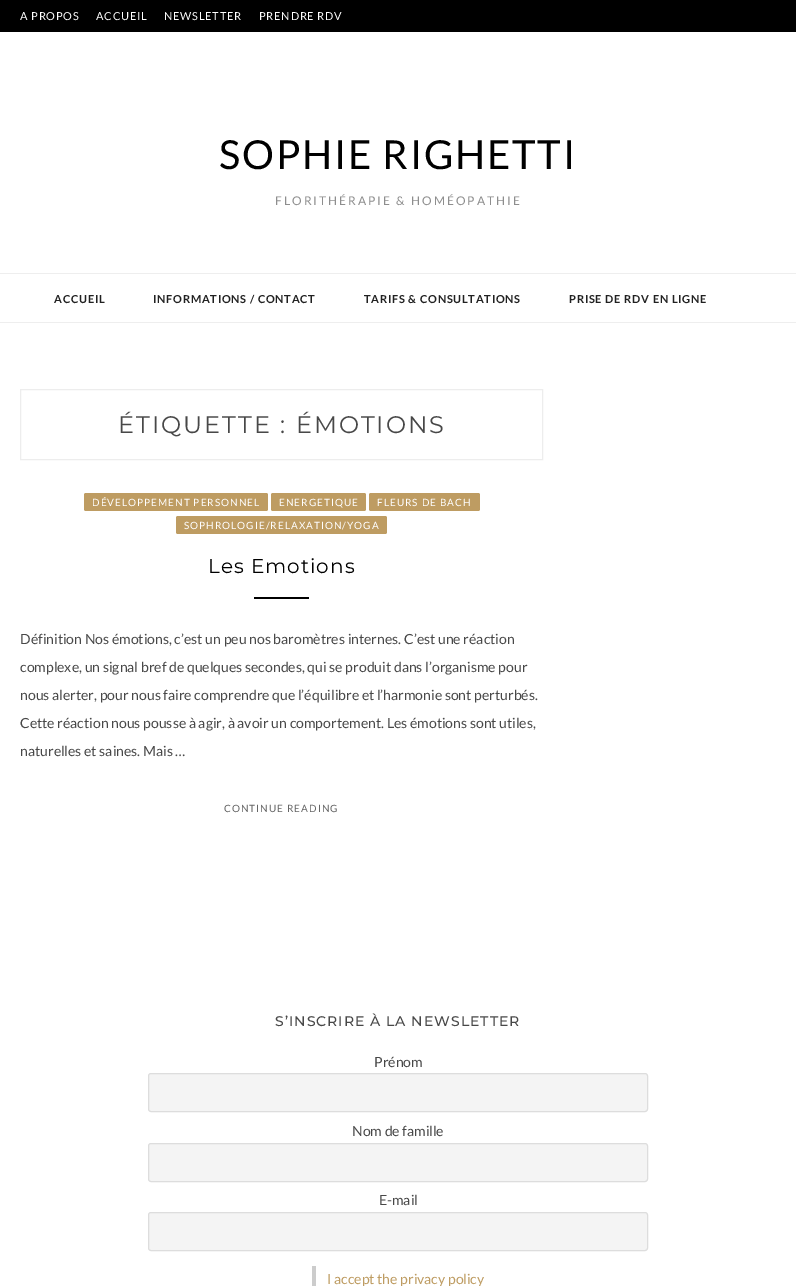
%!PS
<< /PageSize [796 1286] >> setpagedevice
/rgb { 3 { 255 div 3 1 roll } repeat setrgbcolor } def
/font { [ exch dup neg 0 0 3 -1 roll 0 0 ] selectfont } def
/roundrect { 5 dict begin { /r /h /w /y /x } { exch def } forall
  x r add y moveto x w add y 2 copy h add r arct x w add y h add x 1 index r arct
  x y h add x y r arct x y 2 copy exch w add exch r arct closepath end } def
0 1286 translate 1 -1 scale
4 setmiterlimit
255 255 255 rgb
0 0 796 1286 rectfill
[
  [0 0 796 32 0 0 0]
  [0 273 796 1 238 238 238]
  [0 322 796 1 238 238 238]
] { aload pop rgb rectfill } forall
237 237 237 rgb
20.5 389.5 522 70 rectstroke
190 156 98 rgb
84 493 184 18 2 roundrect fill
271 493 95 18 2 roundrect fill
369 493 111 18 2 roundrect fill
176 516 211 18 2 roundrect fill
0 0 0 rgb
254 597 55 2 rectfill
244 244 244 rgb
148.5 1073.5 499 38 2.5 roundrect gsave fill grestore
221 221 221 rgb
stroke
244 244 244 rgb
148.5 1143.5 499 38 2.5 roundrect gsave fill grestore
221 221 221 rgb
stroke
244 244 244 rgb
148.5 1212.5 499 38 2.5 roundrect gsave fill grestore
221 221 221 rgb
stroke
204 204 204 rgb
312 1266 4 20 rectfill
/Lato-Regular 11 font
255 255 255 rgb
20 20 moveto 0.75 0 (A PROPOS) ashow
96 20 moveto 0.75 0 (ACCUEIL) ashow
164 20 moveto 0.75 0 (NEWSLETTER) ashow
259 20 moveto 0.75 0 (PRENDRE RDV) ashow
/Lato-Regular 40 font
0 0 0 rgb
219 169 moveto 1.75 0 (SOPHIE RIGHETTI) ashow
/Lato-Regular 12 font
142 142 142 rgb
275 205 moveto 2 0 (FLORITHÉRAPIE & HOMÉOPATHIE) ashow
/Lato-Bold 11 font
33 33 33 rgb
54 303 moveto 0.75 0 (ACCUEIL) ashow
153 303 moveto 0.75 0 (INFORMATIONS / CONTACT) ashow
364 303 moveto 0.75 0 (TARIFS & CONSULTATIONS) ashow
569 303 moveto 0.75 0 (PRISE DE RDV EN LIGNE) ashow
/Montserrat-Regular 24 font
72 72 72 rgb
118 433 moveto 2 0 (ÉTIQUETTE : ÉMOTIONS) ashow
/Lato-Regular 10 font
255 255 255 rgb
92 506 moveto 1 0 (DÉVELOPPEMENT PERSONNEL) ashow
279 506 moveto 1 0 (ENERGETIQUE) ashow
377 506 moveto 1 0 (FLEURS DE BACH) ashow
184 529 moveto 1 0 (SOPHROLOGIE/RELAXATION/YOGA) ashow
/Montserrat-Regular 20 font
0 0 0 rgb
208 573 moveto 1 0 (Les Emotions) ashow
/Lato-Regular 14 font
72 72 72 rgb
[
  [(Définition Nos émotions, c’est un peu nos baromètres internes. C’est une réaction) 20 644]
  [(complexe, un signal bref de quelques secondes, qui se produit dans l’organisme pour) 20 672]
  [(nous alerter, pour nous faire comprendre que l’équilibre et l’harmonie sont perturbés.) 20 700]
  [(Cette réaction nous pousse à agir, à avoir un comportement. Les émotions sont utiles,) 20 728]
  [(naturelles et saines. Mais …) 20 756]
] { aload pop moveto show } forall
/Lato-Regular 10 font
101 101 101 rgb
224 812 moveto 1 0 (CONTINUE READING) ashow
/Montserrat-Medium 14 font
72 72 72 rgb
275 1026 moveto 1 0 (S’INSCRIRE À LA NEWSLETTER) ashow
/Lato-Regular 14 font
[
  [(Prénom) 374 1067]
  [(Nom de famille) 352 1136]
  [(E-mail) 379 1205]
] { aload pop moveto show } forall
190 156 98 rgb
327 1284 moveto (I accept the privacy policy) show
showpage
